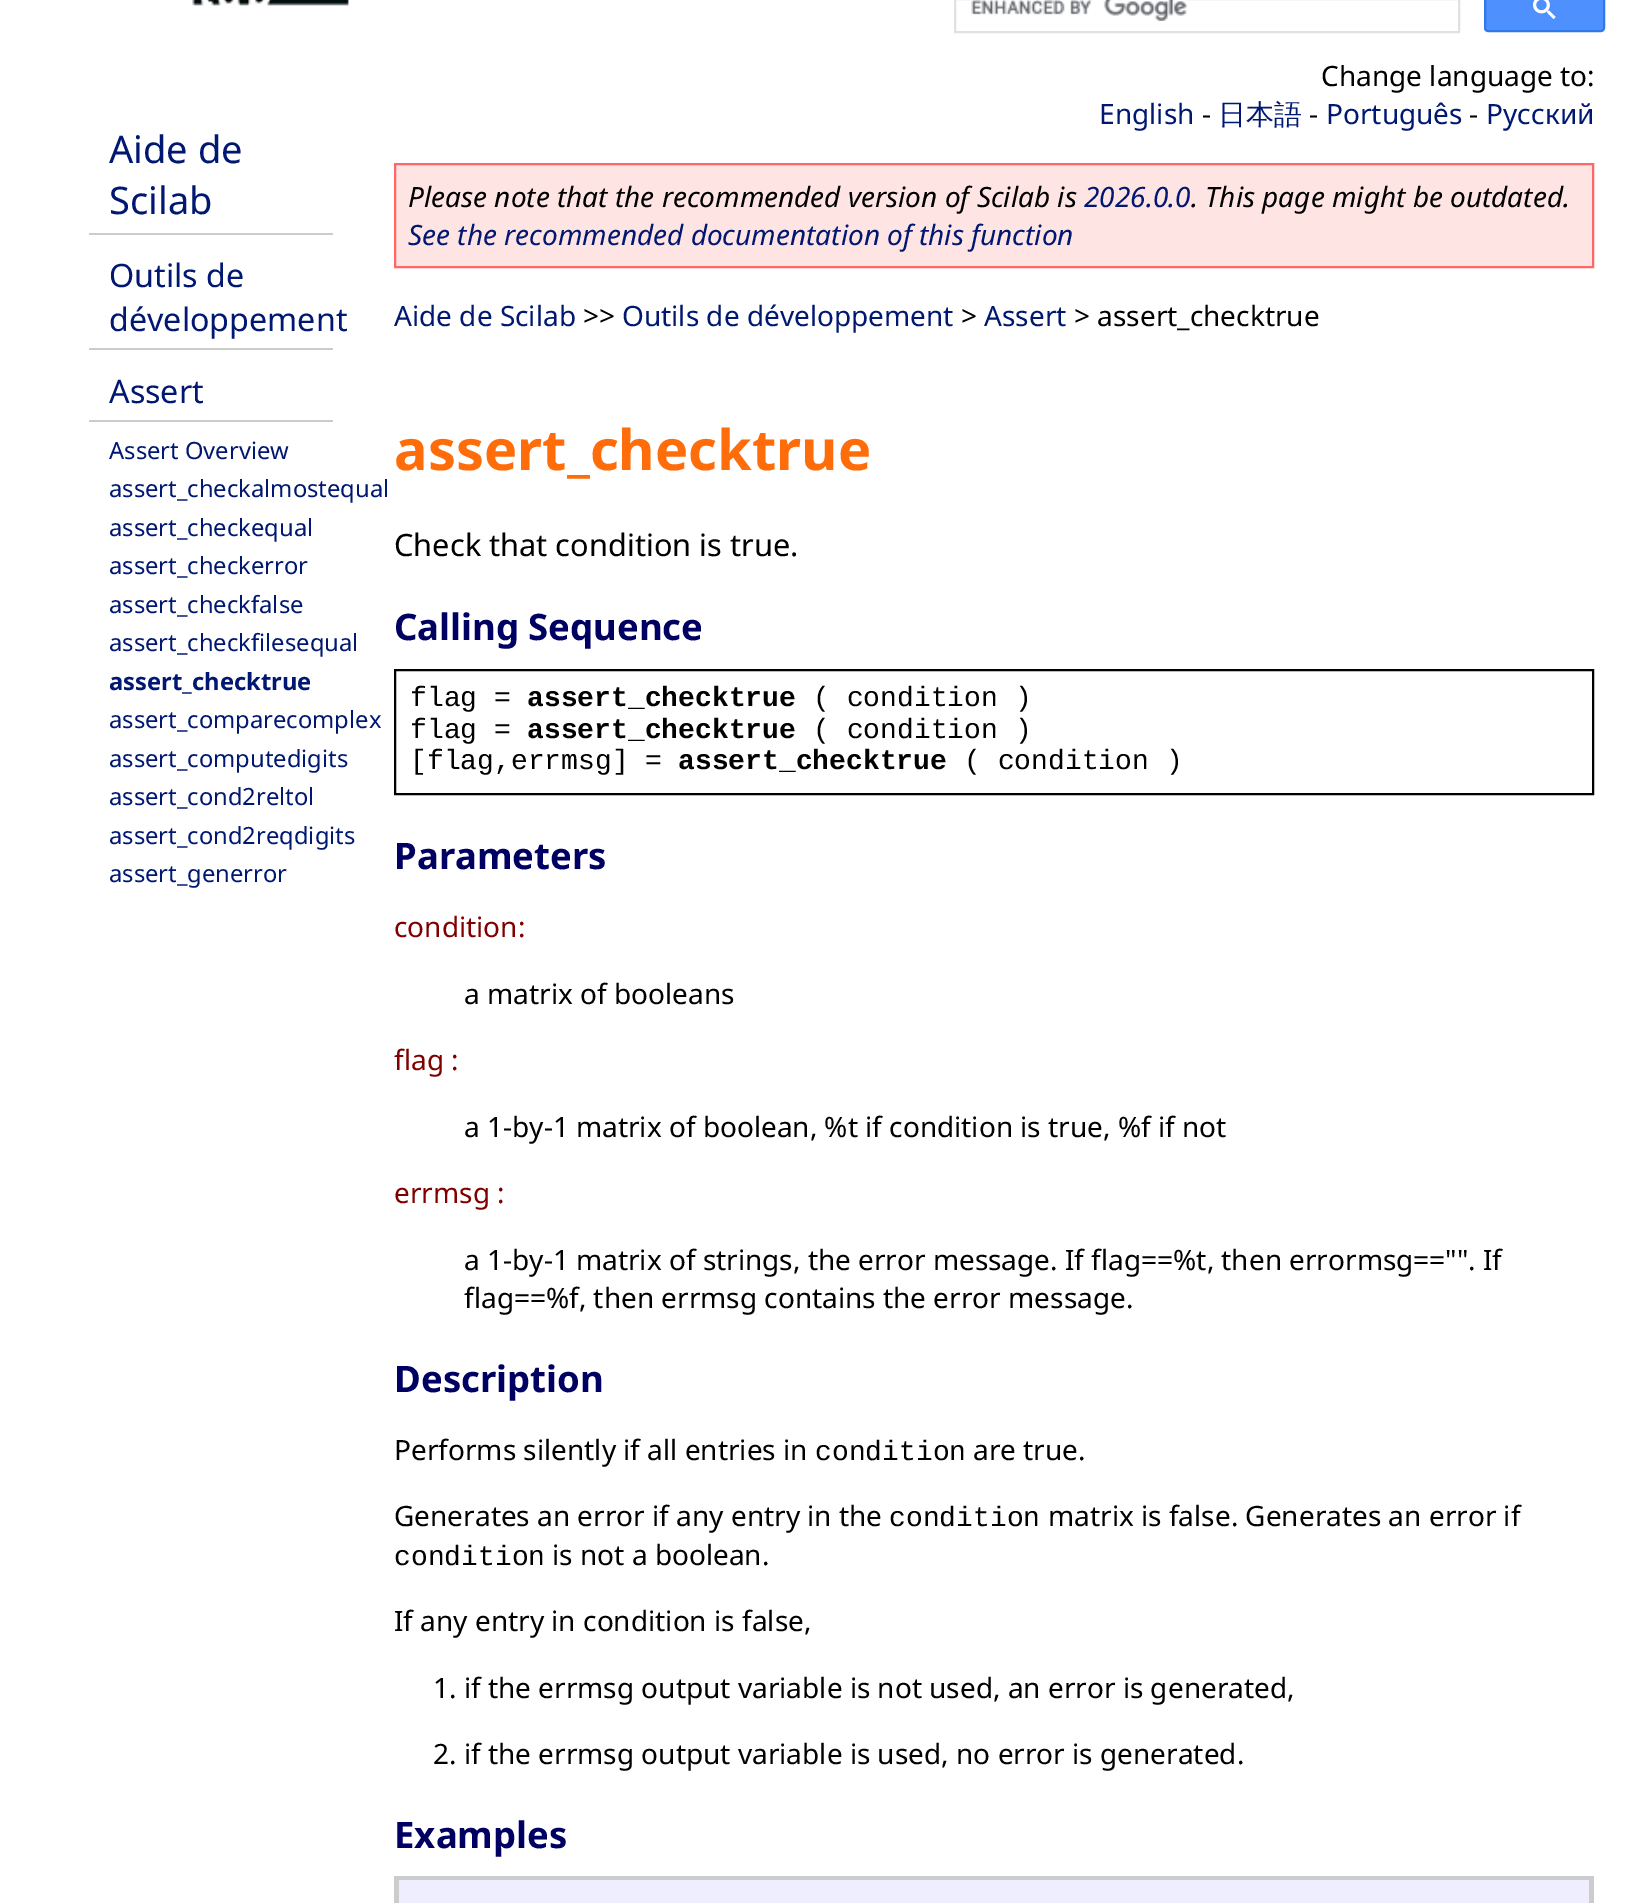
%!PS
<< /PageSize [1638 1903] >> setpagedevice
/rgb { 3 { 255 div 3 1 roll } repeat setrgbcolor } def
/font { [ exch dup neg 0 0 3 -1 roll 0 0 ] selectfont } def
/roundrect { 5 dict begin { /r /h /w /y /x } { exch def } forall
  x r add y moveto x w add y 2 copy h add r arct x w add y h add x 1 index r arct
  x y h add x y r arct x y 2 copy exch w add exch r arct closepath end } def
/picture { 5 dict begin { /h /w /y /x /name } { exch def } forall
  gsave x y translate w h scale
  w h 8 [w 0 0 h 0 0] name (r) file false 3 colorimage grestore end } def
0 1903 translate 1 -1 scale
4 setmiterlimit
255 255 255 rgb
0 0 1638 1903 rectfill
(img/1.rgb) 192 0 157 6 picture
223 225 229 rgb
2 setlinewidth
955 -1 504 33 rectstroke
(img/2.rgb) 971 0 216 21 picture
77 144 254 rgb
1485 -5 119 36 3 roundrect gsave fill grestore
48 121 237 rgb
stroke
(img/3.rgb) 1533 0 23 19 picture
[
  [89 233 244 2 204 204 204]
  [89 348 244 2 204 204 204]
  [89 420 244 2 204 204 204]
] { aload pop rgb rectfill } forall
255 228 228 rgb
395 164 moveto 1593 164 lineto 1593 267 lineto 395 267 lineto closepath gsave fill grestore
255 102 102 rgb
stroke
0 0 0 rgb
395 670 1198 124 rectstroke
[
  [399 1880 1190 23 238 238 255]
  [394 1876 1200 4 204 204 204]
  [1589 1876 5 27 204 204 204]
  [394 1876 5 27 204 204 204]
] { aload pop rgb rectfill } forall
/NotoSans-Regular 38 font
0 24 113 rgb
109 163 moveto (Aide de) show
109 214 moveto (Scilab) show
/NotoSans-Regular 32.25 font
[
  [(Outils de) 109 287]
  [(développement) 109 331]
  [(Assert) 109 403]
] { aload pop moveto show } forall
/NotoSans-Regular 23.75 font
[
  [(Assert Overview) 109 459]
  [(assert_checkalmostequal) 109 497]
  [(assert_checkequal) 109 536]
  [(assert_checkerror) 109 574]
  [(assert_checkfalse) 109 613]
  [(assert_checkfilesequal) 109 651]
] { aload pop moveto show } forall
/NotoSans-Bold 23.75 font
109 690 moveto (assert_checktrue) show
/NotoSans-Regular 23.75 font
[
  [(assert_comparecomplex) 109 728]
  [(assert_computedigits) 109 767]
  [(assert_cond2reltol) 109 805]
  [(assert_cond2reqdigits) 109 844]
  [(assert_generror) 109 882]
] { aload pop moveto show } forall
/NotoSans-Regular 28 font
0 0 0 rgb
1321 86 moveto (Change language to:) show
255 255 255 rgb
1340 64 94 1 rectfill
0 24 113 rgb
1099 124 moveto (English) show
0 0 0 rgb
1202 124 moveto (-) show
/WenQuanYiZenHei-Medium 28 font
0 24 113 rgb
1218 124 moveto (日本語) show
/NotoSans-Regular 28 font
0 0 0 rgb
1309 124 moveto (-) show
0 24 113 rgb
1326 124 moveto (Português) show
0 0 0 rgb
1469 124 moveto (-) show
0 24 113 rgb
1486 124 moveto (Русский) show
/NotoSans-Italic 28 font
0 0 0 rgb
408 207 moveto (Please note that the recommended version of Scilab is) show
0 24 113 rgb
1084 207 moveto (2026.0.0) show
0 0 0 rgb
1191 207 moveto (. This page might be outdated.) show
0 24 113 rgb
408 245 moveto (See the recommended documentation of this function) show
/NotoSans-Regular 28 font
394 326 moveto (Aide de Scilab) show
0 0 0 rgb
583 326 moveto (>>) show
0 24 113 rgb
622 326 moveto (Outils de développement) show
0 0 0 rgb
961 326 moveto (>) show
0 24 113 rgb
984 326 moveto (Assert) show
0 0 0 rgb
1074 326 moveto (> assert_checktrue) show
/NotoSans-Bold 56 font
255 108 10 rgb
394 470 moveto (assert_checktrue) show
/NotoSans-Regular 30.75 font
0 0 0 rgb
394 556 moveto (Check that condition is true.) show
/NotoSans-Bold 36.5 font
0 0 99 rgb
394 640 moveto (Calling Sequence) show
/LiberationMono-Regular 28 font
0 0 0 rgb
410 706 moveto (flag =) show
/LiberationMono-Bold 28 font
527 706 moveto (assert_checktrue) show
/LiberationMono-Regular 28 font
813 706 moveto (\( condition \)) show
410 738 moveto (flag =) show
/LiberationMono-Bold 28 font
527 738 moveto (assert_checktrue) show
/LiberationMono-Regular 28 font
813 738 moveto (\( condition \)) show
410 769 moveto ([flag,errmsg] =) show
/LiberationMono-Bold 28 font
678 769 moveto (assert_checktrue) show
/LiberationMono-Regular 28 font
964 769 moveto (\( condition \)) show
/NotoSans-Bold 36.5 font
0 0 99 rgb
394 869 moveto (Parameters) show
/NotoSans-Regular 28 font
128 0 0 rgb
394 937 moveto (condition:) show
0 0 0 rgb
464 1004 moveto (a matrix of booleans) show
128 0 0 rgb
394 1070 moveto (flag :) show
0 0 0 rgb
464 1137 moveto (a 1-by-1 matrix of boolean, %t if condition is true, %f if not) show
128 0 0 rgb
394 1203 moveto (errmsg :) show
0 0 0 rgb
464 1270 moveto (a 1-by-1 matrix of strings, the error message. If flag==%t, then errormsg=="". If) show
464 1308 moveto (flag==%f, then errmsg contains the error message.) show
/NotoSans-Bold 36.5 font
0 0 99 rgb
394 1392 moveto (Description) show
/NotoSans-Regular 28 font
0 0 0 rgb
394 1460 moveto (Performs silently if all entries in) show
/LiberationMono-Regular 28 font
815 1460 moveto (condition) show
/NotoSans-Regular 28 font
973 1460 moveto (are true.) show
394 1526 moveto (Generates an error if any entry in the) show
/LiberationMono-Regular 28 font
889 1526 moveto (condition) show
/NotoSans-Regular 28 font
1048 1526 moveto (matrix is false. Generates an error if) show
/LiberationMono-Regular 28 font
394 1565 moveto (condition) show
/NotoSans-Regular 28 font
[
  [(is not a boolean.) 552 1565]
  [(If any entry in condition is false,) 394 1631]
  [(1. if the errmsg output variable is not used, an error is generated,) 433 1698]
  [(2. if the errmsg output variable is used, no error is generated.) 433 1764]
] { aload pop moveto show } forall
/NotoSans-Bold 36.5 font
0 0 99 rgb
394 1848 moveto (Examples) show
showpage
